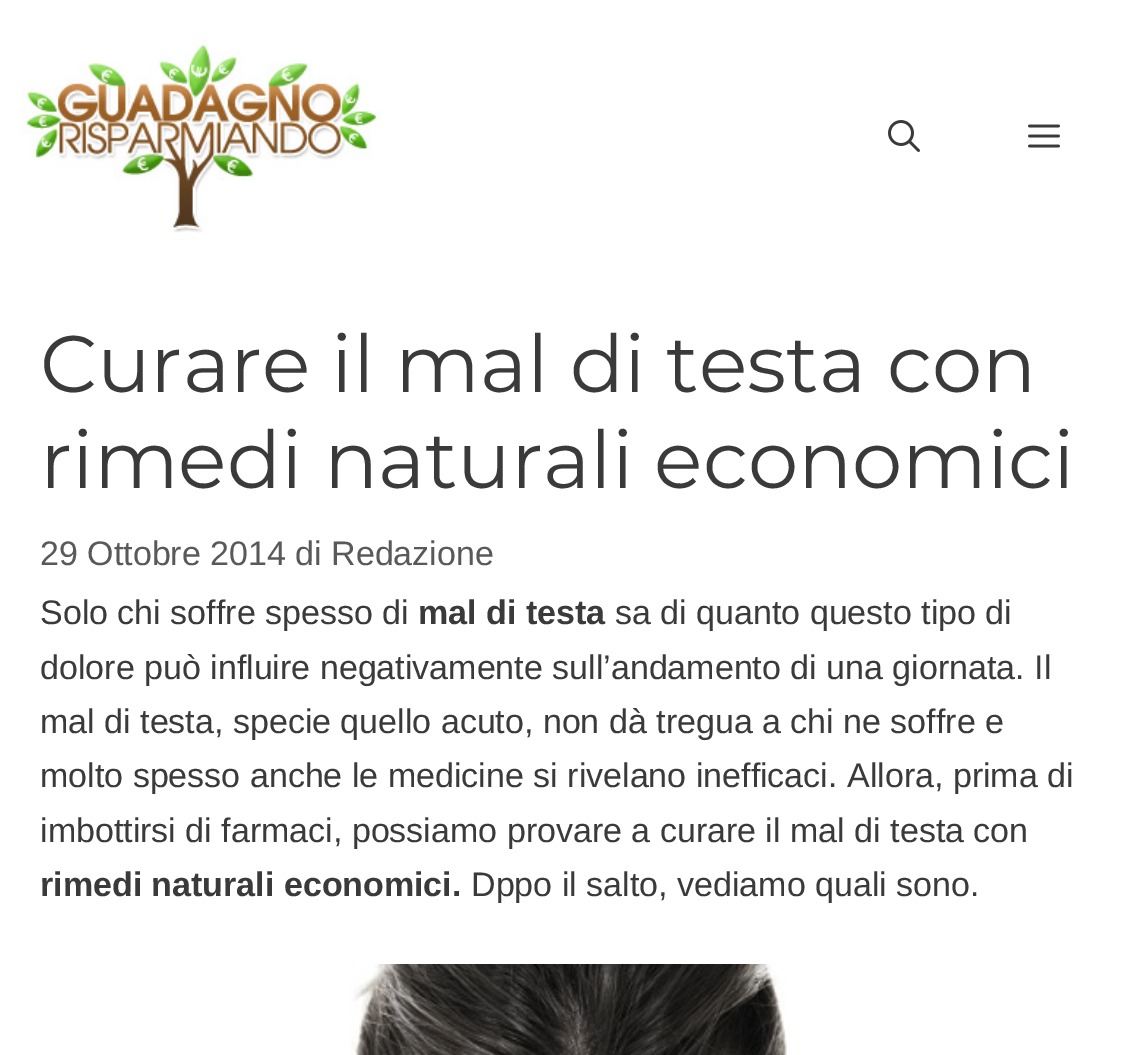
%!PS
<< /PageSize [1134 1055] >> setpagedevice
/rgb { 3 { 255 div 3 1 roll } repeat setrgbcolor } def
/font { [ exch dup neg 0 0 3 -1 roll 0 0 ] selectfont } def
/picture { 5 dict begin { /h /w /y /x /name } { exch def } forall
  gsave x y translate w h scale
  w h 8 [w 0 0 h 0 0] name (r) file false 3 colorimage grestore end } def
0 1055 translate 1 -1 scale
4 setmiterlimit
255 255 255 rgb
0 0 1134 1055 rectfill
(img/1.rgb) 20 40 360 193 picture
(img/2.rgb) 888 120 32 32 picture
(img/3.rgb) 1028 124 32 24 picture
(img/4.rgb) 351 964 436 91 picture
/Montserrat-Regular 80 font
58 58 58 rgb
40 392 moveto (Curare il mal di testa con) show
40 488 moveto (rimedi naturali economici) show
/LiberationSans-Regular 34 font
89 89 89 rgb
40 565 moveto (29 Ottobre 2014 di Redazione) show
58 58 58 rgb
40 624 moveto (Solo chi soffre spesso di) show
/LiberationSans-Bold 34 font
418 624 moveto (mal di testa) show
/LiberationSans-Regular 34 font
[
  [(sa di quanto questo tipo di) 615 624]
  [(dolore può influire negativamente sull’andamento di una giornata. Il) 40 679]
  [(mal di testa, specie quello acuto, non dà tregua a chi ne soffre e) 40 733]
  [(molto spesso anche le medicine si rivelano inefficaci. Allora, prima di) 40 787]
  [(imbottirsi di farmaci, possiamo provare a curare il mal di testa con) 40 842]
] { aload pop moveto show } forall
/LiberationSans-Bold 34 font
40 896 moveto (rimedi naturali economici.) show
/LiberationSans-Regular 34 font
471 896 moveto (Dppo il salto, vediamo quali sono.) show
showpage
